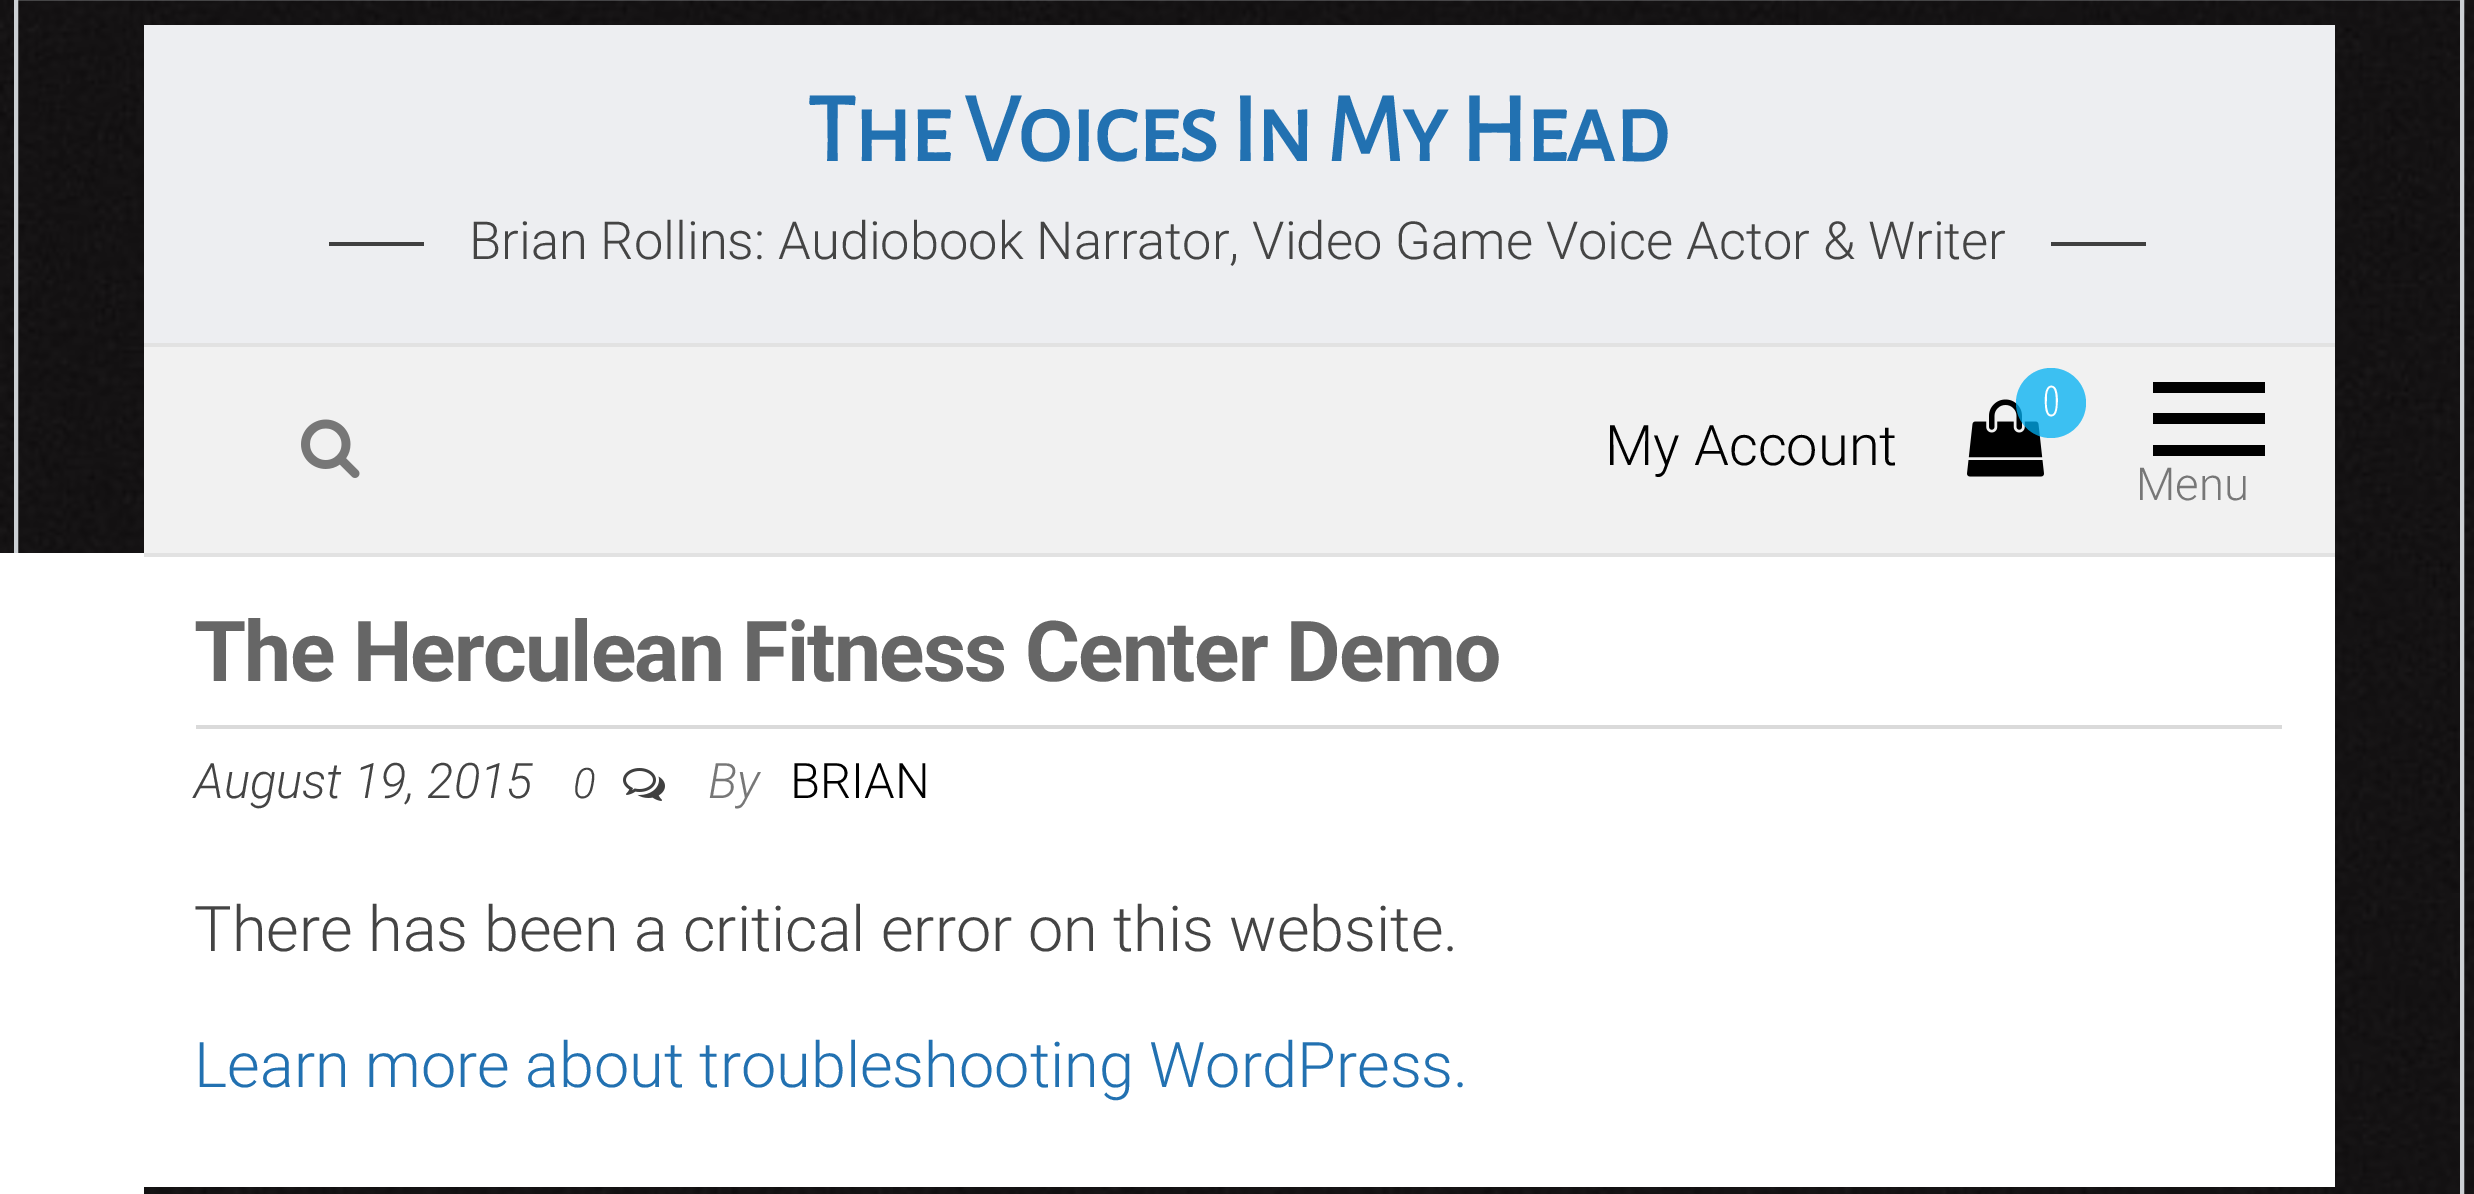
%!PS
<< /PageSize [2474 1194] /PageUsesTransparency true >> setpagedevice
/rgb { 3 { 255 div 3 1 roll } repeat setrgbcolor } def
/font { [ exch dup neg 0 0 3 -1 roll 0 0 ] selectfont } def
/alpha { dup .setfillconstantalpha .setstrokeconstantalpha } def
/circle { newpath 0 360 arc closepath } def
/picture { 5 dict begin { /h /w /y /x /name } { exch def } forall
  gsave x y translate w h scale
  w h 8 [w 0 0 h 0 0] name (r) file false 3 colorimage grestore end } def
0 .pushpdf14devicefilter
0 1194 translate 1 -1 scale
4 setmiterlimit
255 255 255 rgb
0 0 2474 1194 rectfill
(img/1.rgb) 0 0 2474 1194 picture
204 208 212 rgb
4 setlinewidth
16 -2 2446 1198 rectstroke
[
  [144 25 2191 318 237 238 241]
  [329 242 95 4 64 64 64]
  [2051 242 95 4 64 64 64]
  [144 347 2191 206 241 241 241]
  [144 343 2191 4 226 226 226]
  [144 553 2191 4 226 226 226]
] { aload pop rgb rectfill } forall
(img/2.rgb) 1967 399 77 78 picture
0.75 alpha
0 175 242 rgb
2051 403 35 circle fill
1 alpha
[
  [2153 382 112 11 0 0 0]
  [2153 413 112 11 0 0 0]
  [2153 445 112 11 0 0 0]
] { aload pop rgb rectfill } forall
(img/3.rgb) 301 419 59 59 picture
[
  [0 553 144 641 255 255 255]
  [144 557 2191 630 255 255 255]
  [196 725 2086 4 218 218 218]
] { aload pop rgb rectfill } forall
(img/4.rgb) 623 768 42 33 picture
/AlegreyaSansSC-Bold 98 font
34 113 177 rgb
807 161 moveto -2 0 (The Voices In My Head) ashow
/Roboto-Light 52.5 font
68 68 68 rgb
469 259 moveto (Brian Rollins: Audiobook Narrator, Video Game Voice Actor & Writer) show
/OpenSansCondensed-Light 42 font
255 255 255 rgb
2043 416 moveto (0) show
/Roboto-Light 56 font
0 0 0 rgb
1605 465 moveto (My Account) show
/Roboto-Light 45.5 font
119 119 119 rgb
2136 500 moveto (Menu) show
/Roboto-Bold 84 font
102 102 102 rgb
194 681 moveto -1.7 0 (The Herculean Fitness Center Demo) ashow
/Roboto-LightItalic 49 font
68 68 68 rgb
194 798 moveto (August 19, 2015) show
/Roboto-LightItalic 42 font
573 798 moveto (0) show
/Roboto-LightItalic 49 font
119 119 119 rgb
708 798 moveto (By) show
/Roboto-Light 49 font
0 0 0 rgb
790 798 moveto (BRIAN) show
/Roboto-Light 63 font
68 68 68 rgb
194 951 moveto (There has been a critical error on this website.) show
34 113 177 rgb
194 1087 moveto (Learn more about troubleshooting WordPress.) show
.poppdf14devicefilter showpage
